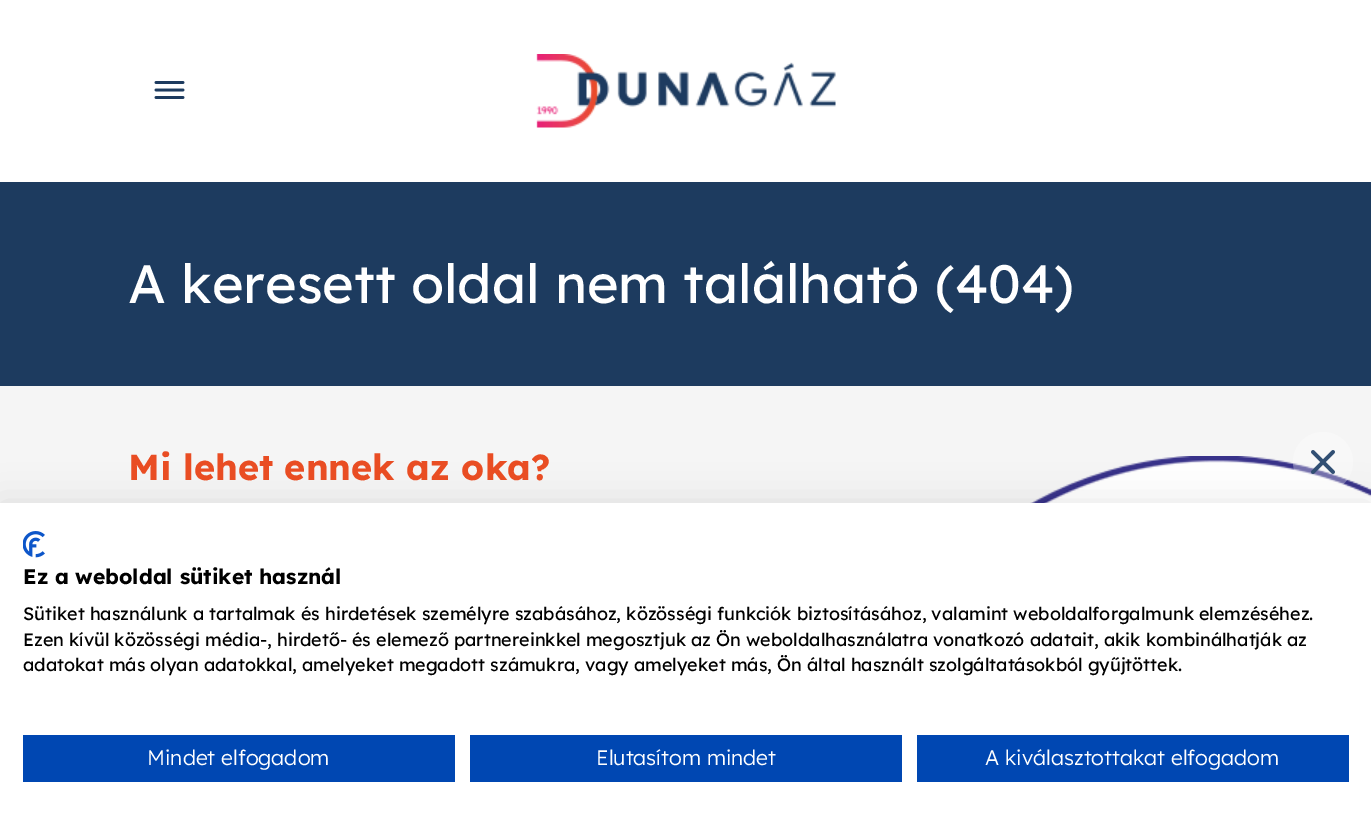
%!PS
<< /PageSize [1371 821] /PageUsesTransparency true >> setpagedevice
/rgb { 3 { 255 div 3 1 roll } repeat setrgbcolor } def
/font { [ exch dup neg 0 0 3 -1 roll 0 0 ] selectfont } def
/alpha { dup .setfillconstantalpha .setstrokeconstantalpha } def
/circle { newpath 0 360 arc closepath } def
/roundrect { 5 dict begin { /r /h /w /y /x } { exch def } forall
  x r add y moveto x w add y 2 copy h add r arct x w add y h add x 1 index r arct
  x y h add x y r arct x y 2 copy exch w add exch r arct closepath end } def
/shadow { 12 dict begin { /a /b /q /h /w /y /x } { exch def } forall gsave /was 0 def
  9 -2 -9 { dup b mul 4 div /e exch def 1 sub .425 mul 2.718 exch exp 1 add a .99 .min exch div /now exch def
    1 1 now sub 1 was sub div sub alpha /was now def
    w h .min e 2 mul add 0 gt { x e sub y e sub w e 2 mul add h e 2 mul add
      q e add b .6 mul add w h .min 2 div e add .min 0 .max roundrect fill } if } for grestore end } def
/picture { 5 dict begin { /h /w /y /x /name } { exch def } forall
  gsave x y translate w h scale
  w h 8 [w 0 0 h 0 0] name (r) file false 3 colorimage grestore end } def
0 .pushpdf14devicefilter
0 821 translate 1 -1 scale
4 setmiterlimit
245 245 245 rgb
0 0 1371 821 rectfill
255 255 255 rgb
0 0 1371 182 rectfill
(img/1.rgb) 154 81 31 18 picture
(img/2.rgb) 536 54 300 74 picture
29 59 95 rgb
0 182 1371 204 rectfill
(img/4.rgb) 1030 456 341 47 picture
0.3 alpha
255 255 255 rgb
1323 462 30 circle fill
1 alpha
(img/3.rgb) 1311 450 24 24 picture
0 0 0 rgb
0 503 1371 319 0 18 0.1 shadow
255 255 255 rgb
0 503 1371 318 rectfill
(img/5.rgb) 23 531 22 27 picture
[
  [23 735 432 47 0 71 178]
  [470 735 432 47 0 71 178]
  [917 735 432 47 0 71 178]
] { aload pop rgb rectfill } forall
/Lexend-Regular 54 font
255 255 255 rgb
128 303 moveto (A keresett oldal nem található \(404\)) show
/Lexend-Bold 36 font
233 77 35 rgb
128 480 moveto (Mi lehet ennek az oka?) show
/Lexend-Bold 21 font
0 0 0 rgb
23 584 moveto (Ez a weboldal sütiket használ) show
/Lexend-Regular 18 font
[
  [(Sütiket használunk a tartalmak és hirdetések személyre szabásához, közösségi funkciók biztosításához, valamint weboldalforgalmunk elemzéséhez.) 23 620]
  [(Ezen kívül közösségi média-, hirdető- és elemező partnereinkkel megosztjuk az Ön weboldalhasználatra vonatkozó adatait, akik kombinálhatják az) 23 646]
  [(adatokat más olyan adatokkal, amelyeket megadott számukra, vagy amelyeket más, Ön által használt szolgáltatásokból gyűjtöttek.) 23 671]
] { aload pop moveto show } forall
/Lexend-Light 21 font
255 255 255 rgb
[
  [(Mindet elfogadom) 147 765]
  [(Elutasítom mindet) 596 765]
  [(A kiválasztottakat elfogadom) 985 765]
] { aload pop moveto show } forall
.poppdf14devicefilter showpage
